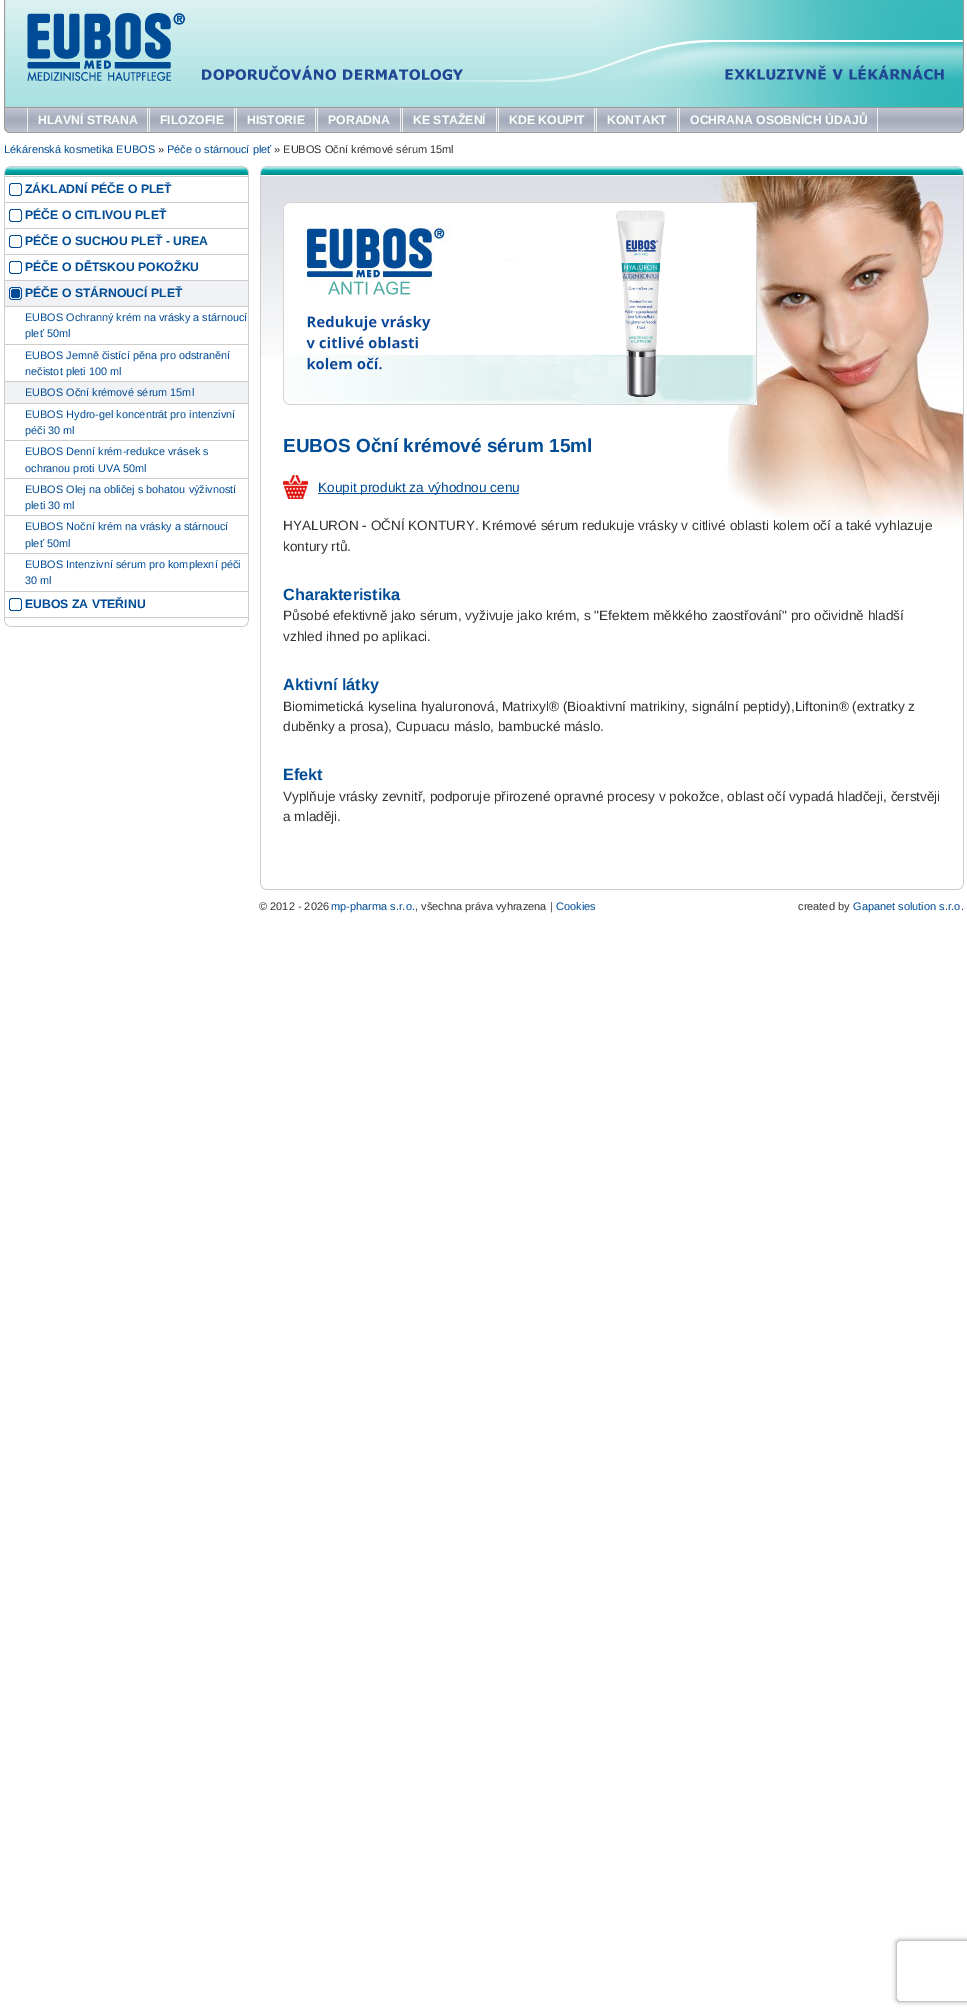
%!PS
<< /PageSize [967 2015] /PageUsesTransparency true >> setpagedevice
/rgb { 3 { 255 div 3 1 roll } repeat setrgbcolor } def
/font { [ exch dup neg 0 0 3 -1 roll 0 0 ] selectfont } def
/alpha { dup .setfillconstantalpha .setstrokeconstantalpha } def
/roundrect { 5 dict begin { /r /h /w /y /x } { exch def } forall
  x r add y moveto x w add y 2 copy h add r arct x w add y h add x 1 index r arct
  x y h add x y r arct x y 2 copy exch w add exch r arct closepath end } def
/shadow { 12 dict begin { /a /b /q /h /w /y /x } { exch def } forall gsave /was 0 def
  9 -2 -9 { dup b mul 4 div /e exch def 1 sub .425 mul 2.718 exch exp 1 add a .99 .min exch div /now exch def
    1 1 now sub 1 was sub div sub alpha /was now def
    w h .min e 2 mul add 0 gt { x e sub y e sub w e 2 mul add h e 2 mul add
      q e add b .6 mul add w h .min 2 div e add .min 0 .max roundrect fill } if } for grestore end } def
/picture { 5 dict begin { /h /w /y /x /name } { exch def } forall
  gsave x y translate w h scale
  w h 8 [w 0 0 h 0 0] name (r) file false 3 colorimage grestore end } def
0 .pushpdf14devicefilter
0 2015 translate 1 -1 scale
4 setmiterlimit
255 255 255 rgb
0 0 967 2015 rectfill
(img/1.rgb) 5 0 958 107 picture
[
  [963 0 1 108 153 153 153]
  [4 107 960 1 153 153 153]
  [4 0 1 108 153 153 153]
] { aload pop rgb rectfill } forall
(img/2.rgb) 4 108 960 25 picture
[
  [147 108 1 24 238 238 238]
  [27 108 1 24 238 238 238]
  [234 108 1 24 238 238 238]
  [149 108 1 24 238 238 238]
  [315 108 1 24 238 238 238]
  [236 108 1 24 238 238 238]
  [400 108 1 24 238 238 238]
  [317 108 1 24 238 238 238]
  [496 108 1 24 238 238 238]
  [402 108 1 24 238 238 238]
  [594 108 1 24 238 238 238]
  [498 108 1 24 238 238 238]
  [677 108 1 24 238 238 238]
  [596 108 1 24 238 238 238]
  [877 108 1 24 238 238 238]
  [679 108 1 24 238 238 238]
] { aload pop rgb rectfill } forall
(img/3.rgb) 4 166 245 10 picture
(img/4.rgb) 9 183 13 13 picture
[
  [4 176 245 1 204 204 204]
  [248 176 1 26 204 204 204]
  [4 176 1 26 204 204 204]
] { aload pop rgb rectfill } forall
(img/4.rgb) 9 209 13 13 picture
[
  [4 202 245 1 204 204 204]
  [248 202 1 26 204 204 204]
  [4 202 1 26 204 204 204]
] { aload pop rgb rectfill } forall
(img/4.rgb) 9 235 13 13 picture
[
  [4 228 245 1 204 204 204]
  [248 228 1 26 204 204 204]
  [4 228 1 26 204 204 204]
] { aload pop rgb rectfill } forall
(img/4.rgb) 9 261 13 13 picture
[
  [4 254 245 1 204 204 204]
  [248 254 1 26 204 204 204]
  [4 254 1 26 204 204 204]
  [5 281 243 25 241 242 245]
] { aload pop rgb rectfill } forall
(img/5.rgb) 9 287 13 13 picture
[
  [4 280 245 1 204 204 204]
  [248 280 1 26 204 204 204]
  [4 280 1 26 204 204 204]
  [4 306 245 1 204 204 204]
  [248 306 1 38 204 204 204]
  [4 306 1 38 204 204 204]
  [4 344 245 1 204 204 204]
  [248 344 1 37 204 204 204]
  [4 344 1 37 204 204 204]
  [5 382 243 21 241 242 245]
  [4 381 245 1 204 204 204]
  [248 381 1 22 204 204 204]
  [4 381 1 22 204 204 204]
  [4 403 245 1 204 204 204]
  [248 403 1 37 204 204 204]
  [4 403 1 37 204 204 204]
  [4 440 245 1 204 204 204]
  [248 440 1 38 204 204 204]
  [4 440 1 38 204 204 204]
  [4 478 245 1 204 204 204]
  [248 478 1 37 204 204 204]
  [4 478 1 37 204 204 204]
  [4 515 245 1 204 204 204]
  [248 515 1 38 204 204 204]
  [4 515 1 38 204 204 204]
  [4 553 245 1 204 204 204]
  [248 553 1 38 204 204 204]
  [4 553 1 38 204 204 204]
] { aload pop rgb rectfill } forall
(img/4.rgb) 9 598 13 13 picture
[
  [4 591 245 1 204 204 204]
  [248 591 1 26 204 204 204]
  [4 591 1 26 204 204 204]
] { aload pop rgb rectfill } forall
(img/6.rgb) 4 617 245 10 picture
(img/7.rgb) 260 166 704 10 picture
(img/8.rgb) 261 176 449 181 picture
963 176 1 707 rectfill
260 176 1 707 rectfill
(img/9.rgb) 710 176 253 350 picture
(img/10.rgb) 283 202 474 203 picture
(img/11.rgb) 283 475 25 24 picture
0 75 150 rgb
318 493 201 1 rectfill
(img/12.rgb) 260 883 704 7 picture
gsave
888 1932 moveto 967 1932 lineto 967 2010 lineto 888 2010 lineto closepath 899 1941 moveto 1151 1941 lineto 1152 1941 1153 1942 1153 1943 curveto 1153 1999 lineto 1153 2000 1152 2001 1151 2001 curveto 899 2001 lineto 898 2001 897 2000 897 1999 curveto 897 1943 lineto 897 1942 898 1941 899 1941 curveto closepath eoclip newpath
128 128 128 rgb
897 1941 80 60 2 2.5 1 shadow
grestore
/LiberationSans-Bold 12.25 font
255 255 255 rgb
[
  [(HLAVNÍ STRANA) 38 124]
  [(FILOZOFIE) 160 124]
  [(HISTORIE) 247 124]
  [(PORADNA) 328 124]
  [(KE STAŽENÍ) 413 124]
  [(KDE KOUPIT) 509 124]
  [(KONTAKT) 607 124]
  [(OCHRANA OSOBNÍCH ÚDAJŮ) 690 124]
] { aload pop moveto show } forall
/LiberationSans-Regular 11 font
0 75 149 rgb
4 153 moveto (Lékárenská kosmetika EUBOS) show
51 51 51 rgb
158 153 moveto (») show
0 75 149 rgb
167 153 moveto (Péče o stárnoucí pleť) show
51 51 51 rgb
274 153 moveto (» EUBOS Oční krémové sérum 15ml) show
/LiberationSans-Bold 12.25 font
0 75 149 rgb
[
  [(ZÁKLADNÍ PÉČE O PLEŤ) 25 193]
  [(PÉČE O CITLIVOU PLEŤ) 25 219]
  [(PÉČE O SUCHOU PLEŤ - UREA) 25 245]
  [(PÉČE O DĚTSKOU POKOŽKU) 25 271]
  [(PÉČE O STÁRNOUCÍ PLEŤ) 25 297]
] { aload pop moveto show } forall
/LiberationSans-Regular 10.9 font
[
  [(EUBOS Ochranný krém na vrásky a stárnoucí) 25 321]
  [(pleť 50ml) 25 337]
  [(EUBOS Jemně čistící pěna pro odstranění) 25 359]
  [(nečistot pleti 100 ml) 25 375]
  [(EUBOS Oční krémové sérum 15ml) 25 396]
  [(EUBOS Hydro-gel koncentrát pro intenzivní) 25 418]
  [(péči 30 ml) 25 434]
  [(EUBOS Denní krém-redukce vrásek s) 25 455]
  [(ochranou proti UVA 50ml) 25 472]
  [(EUBOS Olej na obličej s bohatou výživností) 25 493]
  [(pleti 30 ml) 25 509]
  [(EUBOS Noční krém na vrásky a stárnoucí) 25 530]
  [(pleť 50ml) 25 547]
  [(EUBOS Intenzivní sérum pro komplexní péči) 25 568]
  [(30 ml) 25 584]
] { aload pop moveto show } forall
/LiberationSans-Bold 12.25 font
25 608 moveto (EUBOS ZA VTEŘINU) show
/LiberationSans-Bold 19 font
283 452 moveto (EUBOS Oční krémové sérum 15ml) show
/LiberationSans-Regular 13.6 font
318 492 moveto (Koupit produkt za výhodnou cenu) show
51 51 51 rgb
283 530 moveto (HYALURON - OČNÍ KONTURY. Krémové sérum redukuje vrásky v citlivé oblasti kolem očí a také vyhlazuje) show
283 551 moveto (kontury rtů.) show
/LiberationSans-Bold 16.25 font
0 75 149 rgb
283 600 moveto (Charakteristika) show
/LiberationSans-Regular 13.6 font
51 51 51 rgb
283 620 moveto (Působé efektivně jako sérum, vyživuje jako krém, s "Efektem měkkého zaostřování" pro očividně hladší) show
283 641 moveto (vzhled ihned po aplikaci.) show
/LiberationSans-Bold 16.25 font
0 75 149 rgb
283 690 moveto (Aktivní látky) show
/LiberationSans-Regular 13.6 font
51 51 51 rgb
283 711 moveto (Biomimetická kyselina hyaluronová, Matrixyl® \(Bioaktivní matrikiny, signální peptidy\),Liftonin® \(extratky z) show
283 731 moveto (duběnky a prosa\), Cupuacu máslo, bambucké máslo.) show
/LiberationSans-Bold 16.25 font
0 75 149 rgb
283 780 moveto (Efekt) show
/LiberationSans-Regular 13.6 font
51 51 51 rgb
283 801 moveto (Vyplňuje vrásky zevnitř, podporuje přirozené opravné procesy v pokožce, oblast očí vypadá hladčeji, čerstvěji) show
283 821 moveto (a mlaději.) show
/LiberationSans-Regular 11 font
259 910 moveto (© 2012 - 2026) show
0 75 149 rgb
331 910 moveto (mp-pharma s.r.o.) show
51 51 51 rgb
415 910 moveto (, všechna práva vyhrazena |) show
0 75 149 rgb
556 910 moveto (Cookies) show
51 51 51 rgb
798 910 moveto (created by) show
0 75 149 rgb
853 910 moveto (Gapanet solution s.r.o.) show
.poppdf14devicefilter showpage
